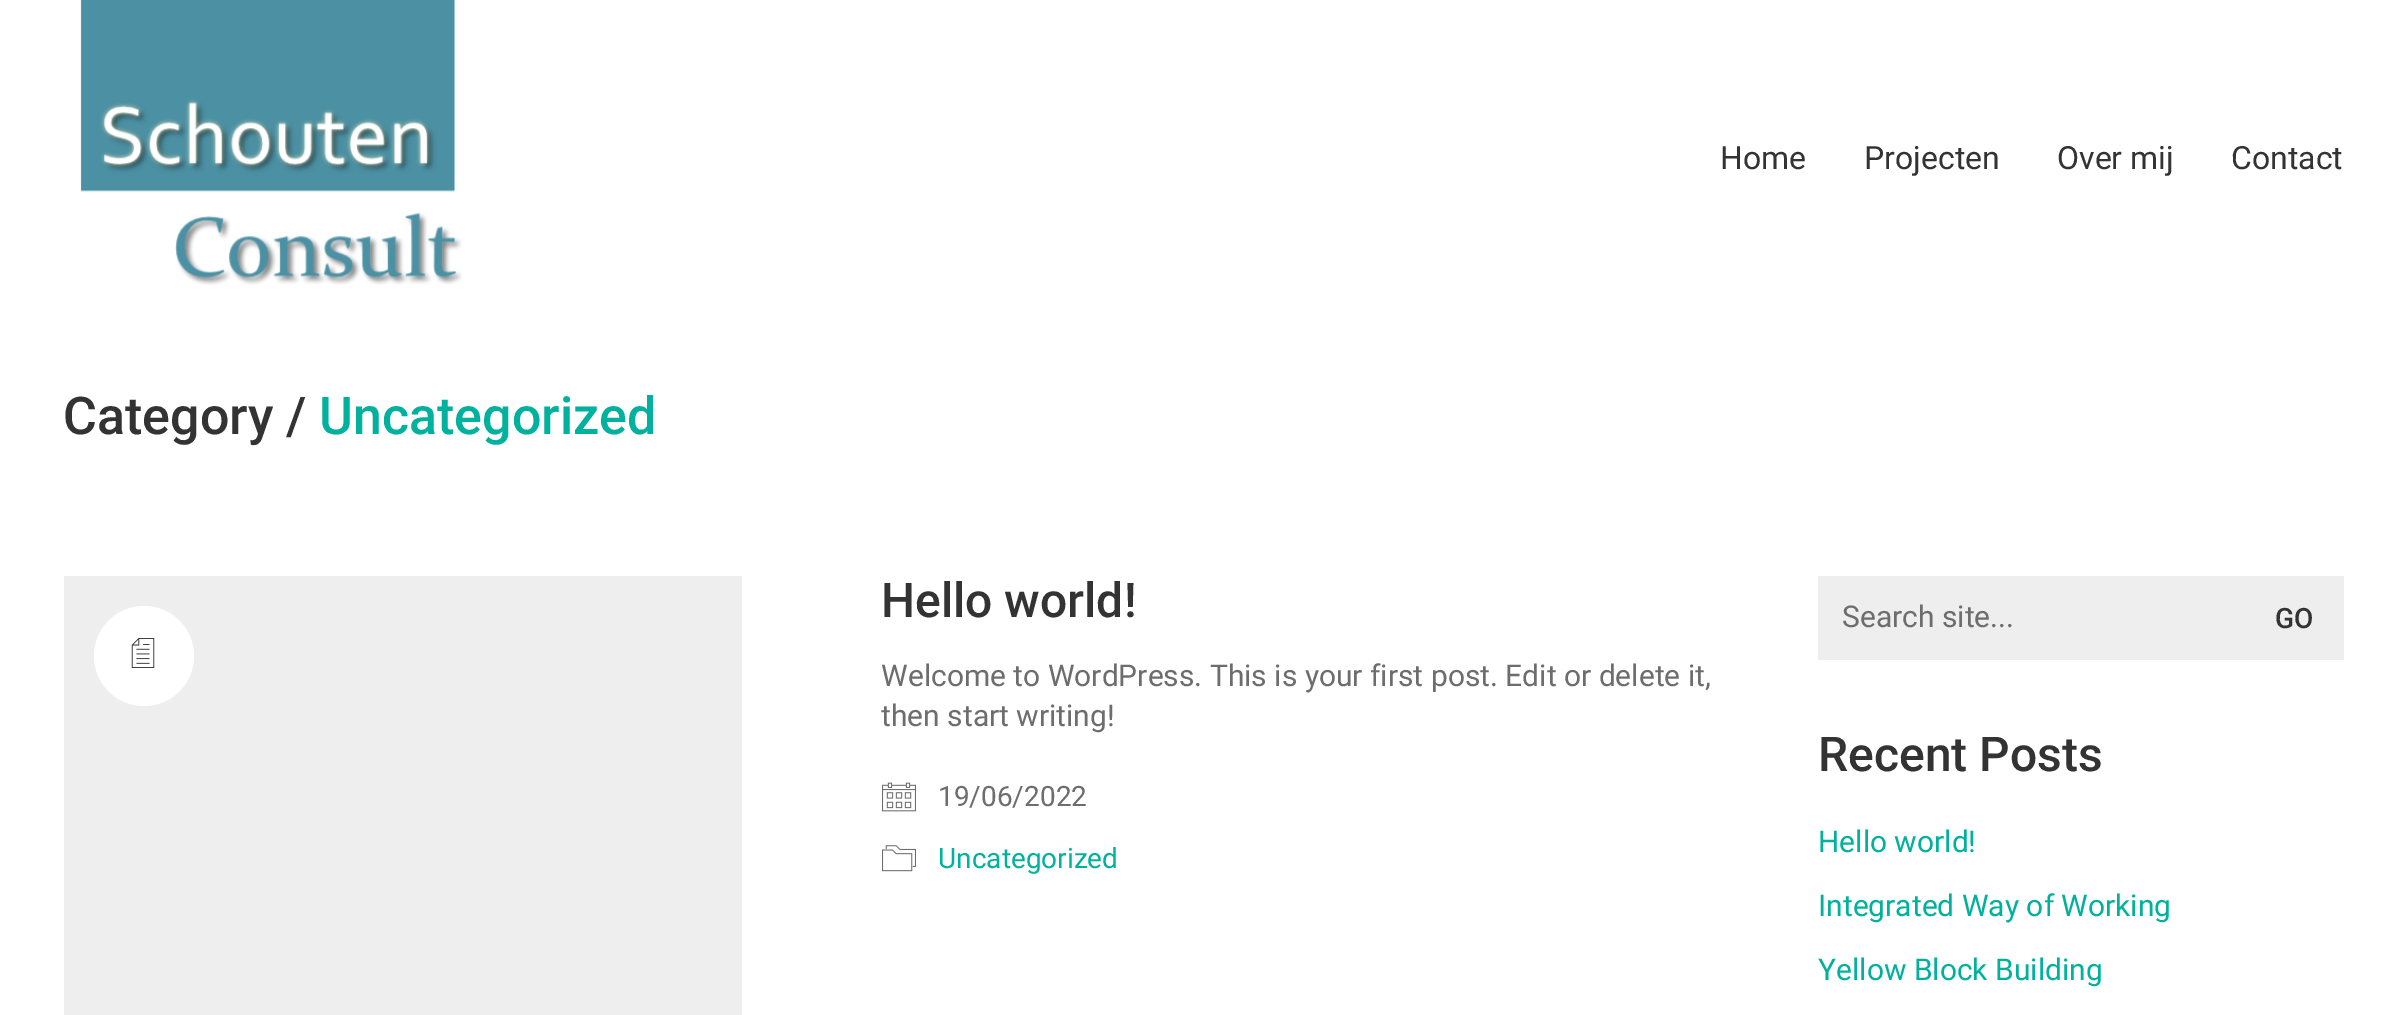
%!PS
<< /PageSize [2406 1015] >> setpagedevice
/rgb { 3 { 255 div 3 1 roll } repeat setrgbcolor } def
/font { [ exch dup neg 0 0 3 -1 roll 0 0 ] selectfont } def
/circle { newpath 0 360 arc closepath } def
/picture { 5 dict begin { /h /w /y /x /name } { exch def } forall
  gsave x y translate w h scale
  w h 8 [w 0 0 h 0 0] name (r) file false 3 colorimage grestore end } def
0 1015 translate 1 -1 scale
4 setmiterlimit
255 255 255 rgb
0 0 2406 1015 rectfill
(img/1.rgb) 80 0 382 285 picture
238 238 238 rgb
64 576 678 439 rectfill
255 255 255 rgb
144 656 50 circle fill
(img/2.rgb) 131 638 24 30 picture
(img/3.rgb) 882 782 34 30 picture
(img/4.rgb) 882 845 34 27 picture
238 238 238 rgb
1818 576 526 84 rectfill
/Roboto-Regular 32 font
51 51 51 rgb
[
  [(Home) 1720 169]
  [(Projecten) 1864 169]
  [(Over mij) 2057 169]
  [(Contact) 2231 169]
] { aload pop moveto show } forall
/Roboto-Medium 52 font
63 434 moveto (Category /) show
0 177 158 rgb
319 434 moveto (Uncategorized) show
/Roboto-Medium 48 font
51 51 51 rgb
881 617 moveto (Hello world!) show
/Roboto-Regular 30 font
109 109 109 rgb
881 686 moveto (Welcome to WordPress. This is your first post. Edit or delete it,) show
881 726 moveto (then start writing!) show
/Roboto-Regular 28 font
938 806 moveto (19/06/2022) show
0 177 158 rgb
938 868 moveto (Uncategorized) show
/Roboto-Regular 30 font
109 109 109 rgb
1842 627 moveto (Search site...) show
/Roboto-Medium 28 font
51 51 51 rgb
2275 628 moveto (GO) show
/Roboto-Medium 48 font
1818 771 moveto (Recent Posts) show
/Roboto-Regular 30 font
0 177 158 rgb
[
  [(Hello world!) 1818 852]
  [(Integrated Way of Working) 1818 916]
  [(Yellow Block Building) 1818 980]
] { aload pop moveto show } forall
showpage
